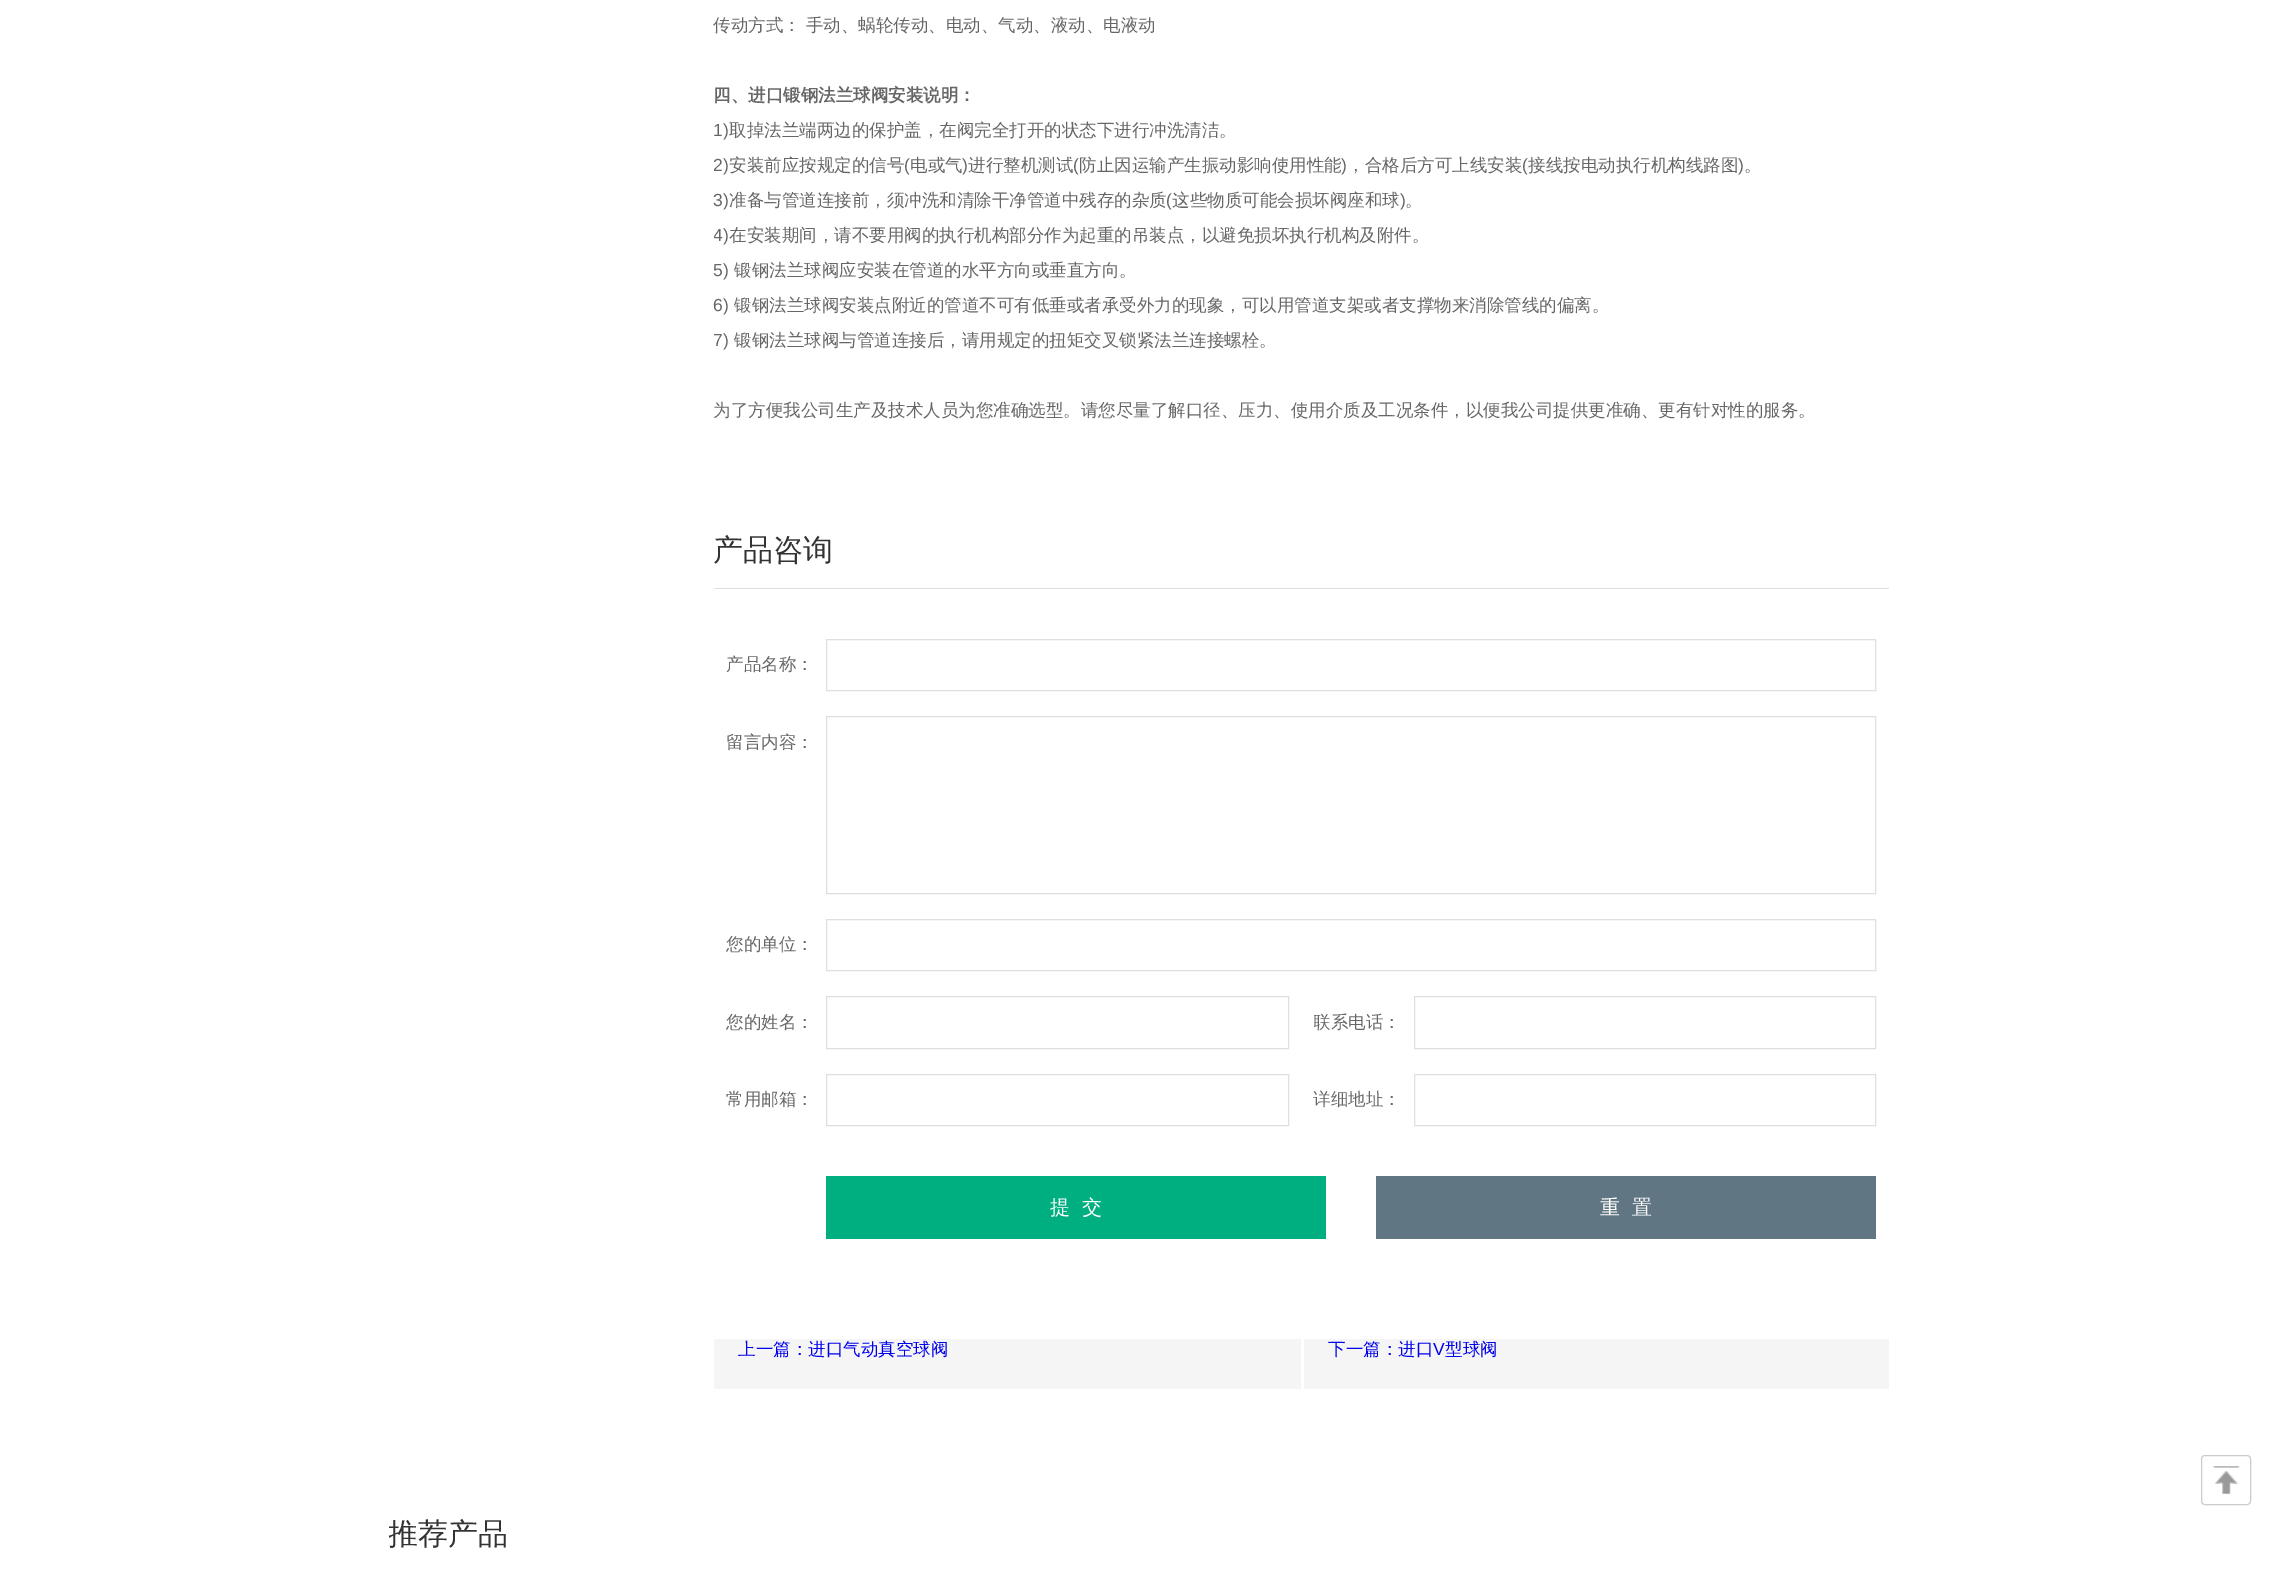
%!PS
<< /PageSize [2276 1579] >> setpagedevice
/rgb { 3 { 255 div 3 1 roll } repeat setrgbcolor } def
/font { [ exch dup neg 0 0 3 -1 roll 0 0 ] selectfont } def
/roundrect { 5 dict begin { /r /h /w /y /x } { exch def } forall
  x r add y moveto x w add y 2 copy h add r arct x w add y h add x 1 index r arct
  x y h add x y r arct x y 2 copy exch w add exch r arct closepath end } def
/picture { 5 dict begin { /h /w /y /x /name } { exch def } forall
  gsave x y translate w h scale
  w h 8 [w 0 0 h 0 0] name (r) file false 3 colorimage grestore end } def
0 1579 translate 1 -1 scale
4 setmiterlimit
255 255 255 rgb
0 0 2276 1579 rectfill
223 223 223 rgb
714 588 1175 1 rectfill
826.5 639.5 1049 51 rectstroke
826.5 716.5 1049 177 rectstroke
826.5 919.5 1049 51 rectstroke
826.5 996.5 462 52 rectstroke
1414.5 996.5 461 52 rectstroke
826.5 1074.5 462 51 rectstroke
1414.5 1074.5 461 51 rectstroke
[
  [826 1176 500 63 0 175 128]
  [1376 1176 500 63 96 119 131]
  [714 1339 587 50 245 245 245]
  [1304 1339 585 50 245 245 245]
] { aload pop rgb rectfill } forall
(img/1.rgb) 2213 1466 27 28 picture
204 204 204 rgb
2201.5 1455.5 49 49 3.5 roundrect stroke
/WenQuanYiZenHei-Medium 17.5 font
102 102 102 rgb
713 31 moveto (传动方式： 手动、蜗轮传动、电动、气动、液动、电液动) show
/WenQuanYiZenHei-Bold 17.5 font
713 101 moveto (四、进口锻钢法兰球阀安装说明：) show
/LiberationSans-Regular 17.5 font
713 136 moveto (1\)) show
/WenQuanYiZenHei-Medium 17.5 font
729 136 moveto (取掉法兰端两边的保护盖，在阀完全打开的状态下进行冲洗清洁。) show
/LiberationSans-Regular 17.5 font
713 171 moveto (2\)) show
/WenQuanYiZenHei-Medium 17.5 font
729 171 moveto (安装前应按规定的信号) show
/LiberationSans-Regular 17.5 font
904 171 moveto (\() show
/WenQuanYiZenHei-Medium 17.5 font
910 171 moveto (电或气) show
/LiberationSans-Regular 17.5 font
962 171 moveto (\)) show
/WenQuanYiZenHei-Medium 17.5 font
968 171 moveto (进行整机测试) show
/LiberationSans-Regular 17.5 font
1073 171 moveto (\() show
/WenQuanYiZenHei-Medium 17.5 font
1079 171 moveto (防止因运输产生振动影响使用性能) show
/LiberationSans-Regular 17.5 font
1341 171 moveto (\)) show
/WenQuanYiZenHei-Medium 17.5 font
1347 171 moveto (，合格后方可上线安装) show
/LiberationSans-Regular 17.5 font
1522 171 moveto (\() show
/WenQuanYiZenHei-Medium 17.5 font
1528 171 moveto (接线按电动执行机构线路图) show
/LiberationSans-Regular 17.5 font
1738 171 moveto (\)) show
/WenQuanYiZenHei-Medium 17.5 font
1744 171 moveto (。) show
/LiberationSans-Regular 17.5 font
713 206 moveto (3\)) show
/WenQuanYiZenHei-Medium 17.5 font
729 206 moveto (准备与管道连接前，须冲洗和清除干净管道中残存的杂质) show
/LiberationSans-Regular 17.5 font
1166 206 moveto (\() show
/WenQuanYiZenHei-Medium 17.5 font
1172 206 moveto (这些物质可能会损坏阀座和球) show
/LiberationSans-Regular 17.5 font
1400 206 moveto (\)) show
/WenQuanYiZenHei-Medium 17.5 font
1405 206 moveto (。) show
gsave
714 113 1175 350 rectclip
/LiberationSans-Regular 17.5 font
713 241 moveto (4\)) show
grestore
729 241 moveto (在安装期间，请不要用阀的执行机构部分作为起重的吊装点，以避免损坏执行机构及附件。) show
/LiberationSans-Regular 17.5 font
713 276 moveto (5\)) show
/WenQuanYiZenHei-Medium 17.5 font
734 276 moveto (锻钢法兰球阀应安装在管道的水平方向或垂直方向。) show
/LiberationSans-Regular 17.5 font
713 311 moveto (6\)) show
/WenQuanYiZenHei-Medium 17.5 font
734 311 moveto (锻钢法兰球阀安装点附近的管道不可有低垂或者承受外力的现象，可以用管道支架或者支撑物来消除管线的偏离。) show
/LiberationSans-Regular 17.5 font
713 346 moveto (7\)) show
/WenQuanYiZenHei-Medium 17.5 font
734 346 moveto (锻钢法兰球阀与管道连接后，请用规定的扭矩交叉锁紧法兰连接螺栓。) show
713 416 moveto (为了方便我公司生产及技术人员为您准确选型。请您尽量了解口径、压力、使用介质及工况条件，以便我公司提供更准确、更有针对性的服务。) show
/WenQuanYiZenHei-Medium 30 font
51 51 51 rgb
713 560 moveto (产品咨询) show
/WenQuanYiZenHei-Medium 17.5 font
102 102 102 rgb
[
  [(产品名称：) 726 670]
  [(留言内容：) 726 748]
  [(您的单位：) 726 950]
  [(您的姓名：) 726 1028]
] { aload pop moveto show } forall
gsave
1314 996 100 50 rectclip
1313 1028 moveto (联系电话：) show
grestore
726 1105 moveto (常用邮箱：) show
1313 1105 moveto (详细地址：) show
/WenQuanYiZenHei-Medium 20 font
255 255 255 rgb
1050 1214 moveto (提  交) show
1600 1214 moveto (重  置) show
/WenQuanYiZenHei-Medium 17.5 font
0 0 238 rgb
738 1355 moveto (上一篇：进口气动真空球阀) show
1328 1355 moveto (下一篇：进口) show
/LiberationSans-Regular 17.5 font
1433 1355 moveto (V) show
/WenQuanYiZenHei-Medium 17.5 font
1445 1355 moveto (型球阀) show
gsave
389 1514 1500 40 rectclip
/WenQuanYiZenHei-Medium 30 font
51 51 51 rgb
388 1544 moveto (推荐产品) show
grestore
showpage
